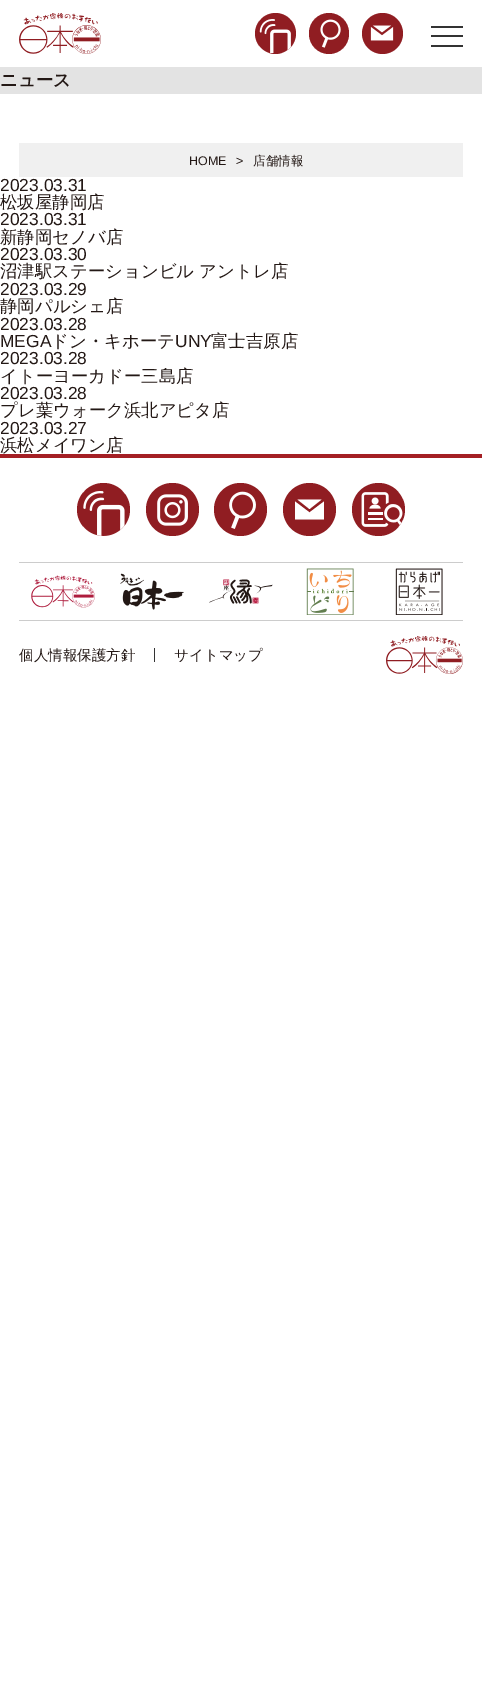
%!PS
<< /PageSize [482 1694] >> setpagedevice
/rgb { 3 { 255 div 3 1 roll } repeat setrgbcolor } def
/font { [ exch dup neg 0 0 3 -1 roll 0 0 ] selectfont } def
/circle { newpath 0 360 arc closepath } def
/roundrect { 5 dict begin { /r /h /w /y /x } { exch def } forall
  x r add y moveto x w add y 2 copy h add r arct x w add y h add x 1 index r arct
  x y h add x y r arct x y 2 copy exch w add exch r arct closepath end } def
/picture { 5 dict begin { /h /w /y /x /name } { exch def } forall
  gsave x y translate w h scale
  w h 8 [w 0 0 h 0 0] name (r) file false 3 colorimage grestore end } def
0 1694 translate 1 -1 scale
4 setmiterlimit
255 255 255 rgb
0 0 482 1694 rectfill
(img/1.rgb) 19 13 82 41 picture
144 29 34 rgb
275.5 33.5 20.5 circle fill
(img/2.rgb) 259 19 32 34 picture
309 13 40 41 20 roundrect fill
(img/3.rgb) 320 19 21 29 picture
382.5 33.5 20.5 circle fill
(img/4.rgb) 370 25 24 16 picture
[
  [431 26 32 2 51 51 51]
  [431 35 32 2 51 51 51]
  [431 45 32 2 51 51 51]
  [0 67 482 27 227 227 227]
  [19 143 444 34 240 240 240]
  [0 454 482 4 164 31 36]
] { aload pop rgb rectfill } forall
144 29 34 rgb
103.5 509.5 26.5 circle fill
(img/5.rgb) 83 491 42 45 picture
172.5 509.5 26.5 circle fill
(img/6.rgb) 157 494 31 32 picture
240.5 509.5 26.5 circle fill
(img/7.rgb) 229 491 27 38 picture
309.5 509.5 26.5 circle fill
255 255 255 rgb
321.5 499.5 moveto 297.5 499.5 lineto 309.5 509 lineto closepath fill
309.5 512.5 moveto 295 501.5 lineto 295 519.5 lineto 324 519.5 lineto 324 501.5 lineto closepath fill
144 29 34 rgb
378.5 509.5 26.5 circle fill
(img/8.rgb) 361 492 42 35 picture
204 204 204 rgb
19 562 444 1 rectfill
19 620 444 1 rectfill
(img/9.rgb) 31 575 64 33 picture
(img/10.rgb) 120 573 64 37 picture
(img/11.rgb) 209 579 64 25 picture
(img/12.rgb) 306 568 48 47 picture
(img/13.rgb) 395 568 48 47 picture
51 51 51 rgb
154 648 1 14 rectfill
(img/14.rgb) 386 636 77 38 picture
/WenQuanYiZenHei-Bold 17.4 font
35 24 21 rgb
0 86 moveto (ニュース) show
/LiberationSans-Regular 12.5 font
189 165 moveto (HOME) show
236 165 moveto (>) show
/WenQuanYiZenHei-Medium 12.5 font
253 165 moveto (店舗情報) show
/LiberationSans-Regular 17.4 font
0 191 moveto (2023.03.31) show
/WenQuanYiZenHei-Medium 17.4 font
0 208 moveto (松坂屋静岡店) show
/LiberationSans-Regular 17.4 font
0 225 moveto (2023.03.31) show
/WenQuanYiZenHei-Medium 17.4 font
0 243 moveto (新静岡セノバ店) show
/LiberationSans-Regular 17.4 font
0 260 moveto (2023.03.30) show
/WenQuanYiZenHei-Medium 17.4 font
0 277 moveto (沼津駅ステーションビル アントレ店) show
/LiberationSans-Regular 17.4 font
0 295 moveto (2023.03.29) show
/WenQuanYiZenHei-Medium 17.4 font
0 312 moveto (静岡パルシェ店) show
/LiberationSans-Regular 17.4 font
0 330 moveto (2023.03.28) show
0 347 moveto (MEGA) show
/WenQuanYiZenHei-Medium 17.4 font
51 347 moveto (ドン・キホーテ) show
/LiberationSans-Regular 17.4 font
175 347 moveto (UNY) show
/WenQuanYiZenHei-Medium 17.4 font
211 347 moveto (富士吉原店) show
/LiberationSans-Regular 17.4 font
0 364 moveto (2023.03.28) show
/WenQuanYiZenHei-Medium 17.4 font
0 382 moveto (イトーヨーカドー三島店) show
/LiberationSans-Regular 17.4 font
0 399 moveto (2023.03.28) show
/WenQuanYiZenHei-Medium 17.4 font
0 416 moveto (プレ葉ウォーク浜北アピタ店) show
/LiberationSans-Regular 17.4 font
0 434 moveto (2023.03.27) show
/WenQuanYiZenHei-Medium 17.4 font
0 451 moveto (浜松メイワン店) show
/WenQuanYiZenHei-Medium 14.5 font
19 660 moveto (個人情報保護方針) show
174 660 moveto (サイトマップ) show
showpage
